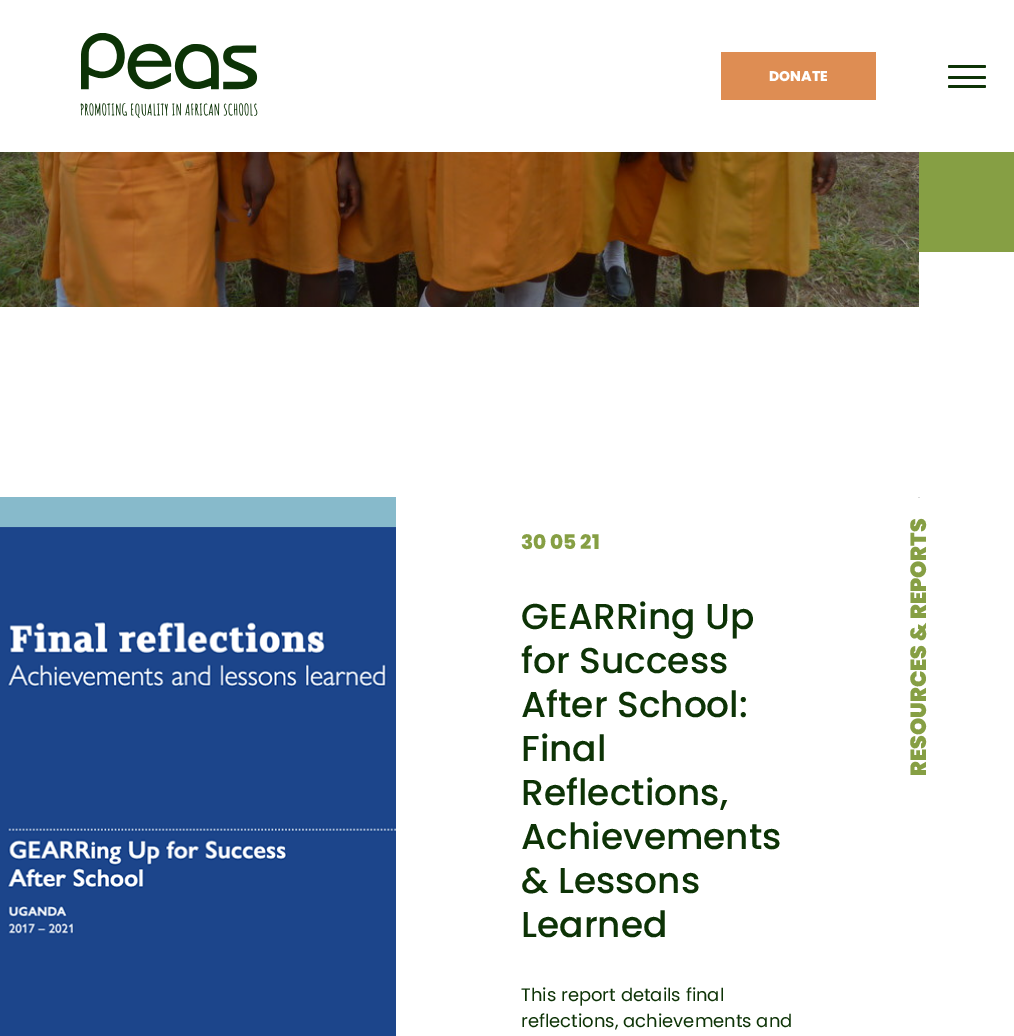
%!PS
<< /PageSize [1014 1036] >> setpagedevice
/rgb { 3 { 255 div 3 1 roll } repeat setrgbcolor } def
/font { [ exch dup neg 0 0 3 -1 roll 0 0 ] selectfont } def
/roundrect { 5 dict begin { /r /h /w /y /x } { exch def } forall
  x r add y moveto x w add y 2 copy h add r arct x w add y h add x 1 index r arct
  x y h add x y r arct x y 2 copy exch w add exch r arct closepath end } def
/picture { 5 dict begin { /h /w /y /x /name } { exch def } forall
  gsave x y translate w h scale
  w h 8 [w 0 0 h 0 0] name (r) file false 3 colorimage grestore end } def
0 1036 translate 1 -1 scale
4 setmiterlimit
255 255 255 rgb
0 0 1014 1036 rectfill
(img/1.rgb) 80 33 178 85 picture
222 141 83 rgb
721 52 155 48 rectfill
13 51 6 rgb
948 65 38 3 1.5 roundrect fill
948 76 38 3 1.5 roundrect fill
948 85 38 3 1.5 roundrect fill
134 159 68 rgb
919 152 95 100 rectfill
(img/2.rgb) 0 152 919 155 picture
135 186 203 rgb
0 497 396 31 rectfill
(img/3.rgb) 0 527 396 509 picture
217 217 217 rgb
918 497 2 1 rectfill
/Poppins-ExtraBold 14 font
255 255 255 rgb
769 81 moveto (DONATE) show
/Poppins-ExtraBold 20 font
134 159 68 rgb
521 549 moveto (30 05 21) show
/Poppins-Medium 36 font
13 51 6 rgb
[
  [(GEARRing Up) 521 629]
  [(for Success) 521 673]
  [(After School:) 521 717]
  [(Final) 521 761]
  [(Reflections,) 521 805]
  [(Achievements) 521 849]
  [(& Lessons) 521 893]
  [(Learned) 521 937]
] { aload pop moveto show } forall
/Poppins-Regular 18 font
521 1001 moveto (This report details final) show
521 1027 moveto (reflections, achievements and) show
/Poppins-Black 22 font
134 159 68 rgb
gsave 926 776 translate -90 rotate 0 0 moveto (RESOURCES & REPORTS) show grestore
showpage
